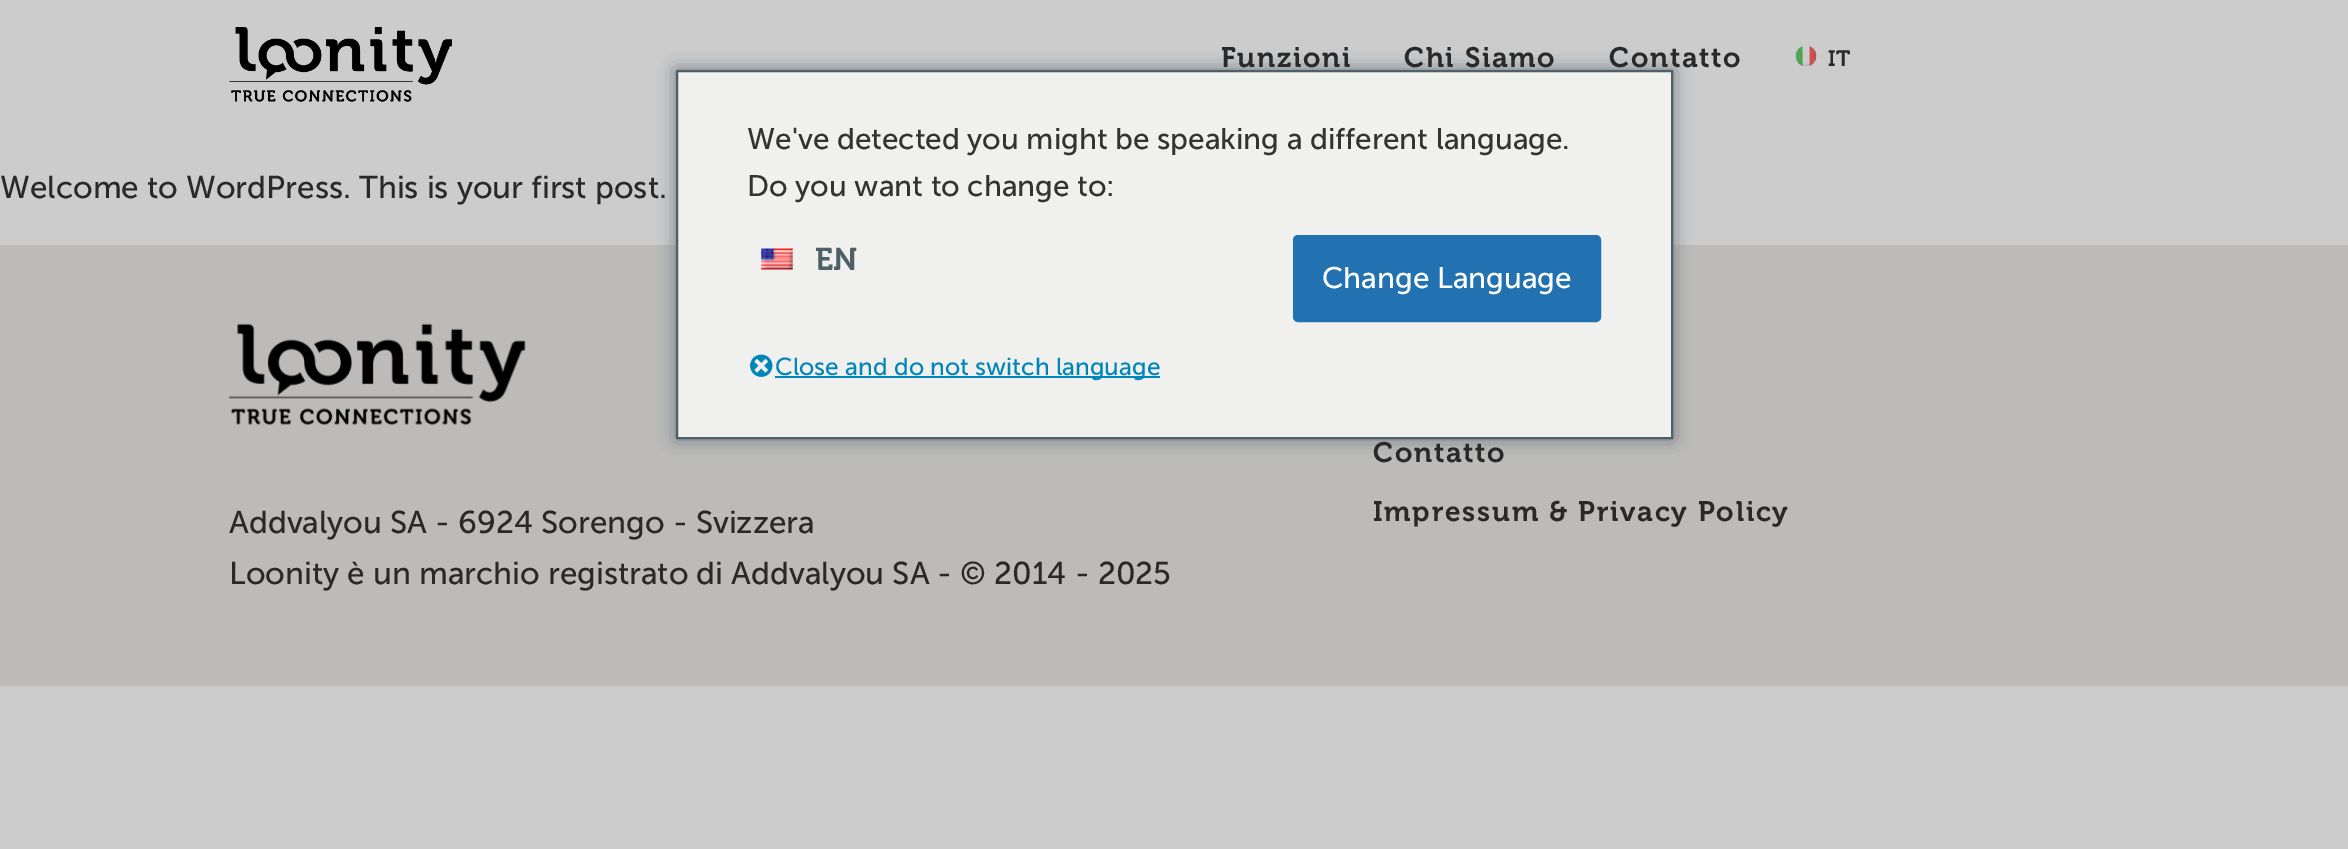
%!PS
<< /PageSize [2348 849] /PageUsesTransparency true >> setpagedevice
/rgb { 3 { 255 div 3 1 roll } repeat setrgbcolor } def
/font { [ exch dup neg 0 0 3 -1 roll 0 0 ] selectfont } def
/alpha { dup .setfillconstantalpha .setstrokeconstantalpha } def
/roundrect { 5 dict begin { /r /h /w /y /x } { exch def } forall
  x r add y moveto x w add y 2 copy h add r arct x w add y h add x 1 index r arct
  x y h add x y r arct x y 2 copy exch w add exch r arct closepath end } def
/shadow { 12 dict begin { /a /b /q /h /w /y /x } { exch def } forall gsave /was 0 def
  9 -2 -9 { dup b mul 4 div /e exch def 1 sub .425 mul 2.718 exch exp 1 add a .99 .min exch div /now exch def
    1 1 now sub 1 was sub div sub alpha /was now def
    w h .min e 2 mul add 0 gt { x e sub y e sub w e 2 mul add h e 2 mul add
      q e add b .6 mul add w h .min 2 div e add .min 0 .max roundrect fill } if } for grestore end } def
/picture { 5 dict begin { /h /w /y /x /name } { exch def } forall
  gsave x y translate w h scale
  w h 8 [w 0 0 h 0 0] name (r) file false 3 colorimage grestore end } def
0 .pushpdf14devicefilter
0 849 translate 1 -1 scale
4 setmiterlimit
204 204 204 rgb
0 0 2348 849 rectfill
(img/1.rgb) 229 27 223 75 picture
(img/2.rgb) 1795 46 22 21 picture
188 187 186 rgb
0 245 2348 441 rectfill
108 119 129 rgb
676 70 997 369 0 9 1 shadow
240 240 238 rgb
677 71 moveto 1672 71 lineto 1672 438 lineto 677 438 lineto closepath gsave fill grestore
76 96 102 rgb
2 setlinewidth
stroke
(img/3.rgb) 761 248 32 22 picture
34 113 177 rgb
1294 236 306 85 4 roundrect gsave fill grestore
stroke
(img/4.rgb) 750 354 23 23 picture
0 133 186 rgb
775 376 385 2 rectfill
(img/5.rgb) 229 323 297 102 picture
/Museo-SemiBold 28 font
41 41 41 rgb
1221 67 moveto 1.75 0 (Funzioni) ashow
1404 67 moveto 1.75 0 (Chi Siamo) ashow
1609 67 moveto 1.75 0 (Contatto) ashow
/Museo-SemiBold 22 font
1828 66 moveto (IT) show
/MuseoSans-Regular 31.5 font
0 198 moveto (Welcome to WordPress. This is your first post.) show
/MuseoSans-Regular 29.75 font
51 51 51 rgb
747 149 moveto (We've detected you might be speaking a different language.) show
747 196 moveto (Do you want to change to:) show
/Museo-SemiBold 31.5 font
76 96 102 rgb
815 270 moveto (EN) show
/MuseoSans-Regular 29.75 font
255 255 255 rgb
1322 288 moveto (Change Language) show
/MuseoSans-Regular 24.5 font
0 133 186 rgb
775 375 moveto (Close and do not switch language) show
/Museo-SemiBold 28 font
41 41 41 rgb
1373 462 moveto 1.75 0 (Contatto) ashow
1373 521 moveto 1.75 0 (Impressum & Privacy Policy) ashow
/MuseoSans-Regular 31.5 font
229 533 moveto (Addvalyou SA - 6924 Sorengo - Svizzera) show
229 584 moveto (Loonity è un marchio registrato di Addvalyou SA - © 2014 - 2025) show
.poppdf14devicefilter showpage
